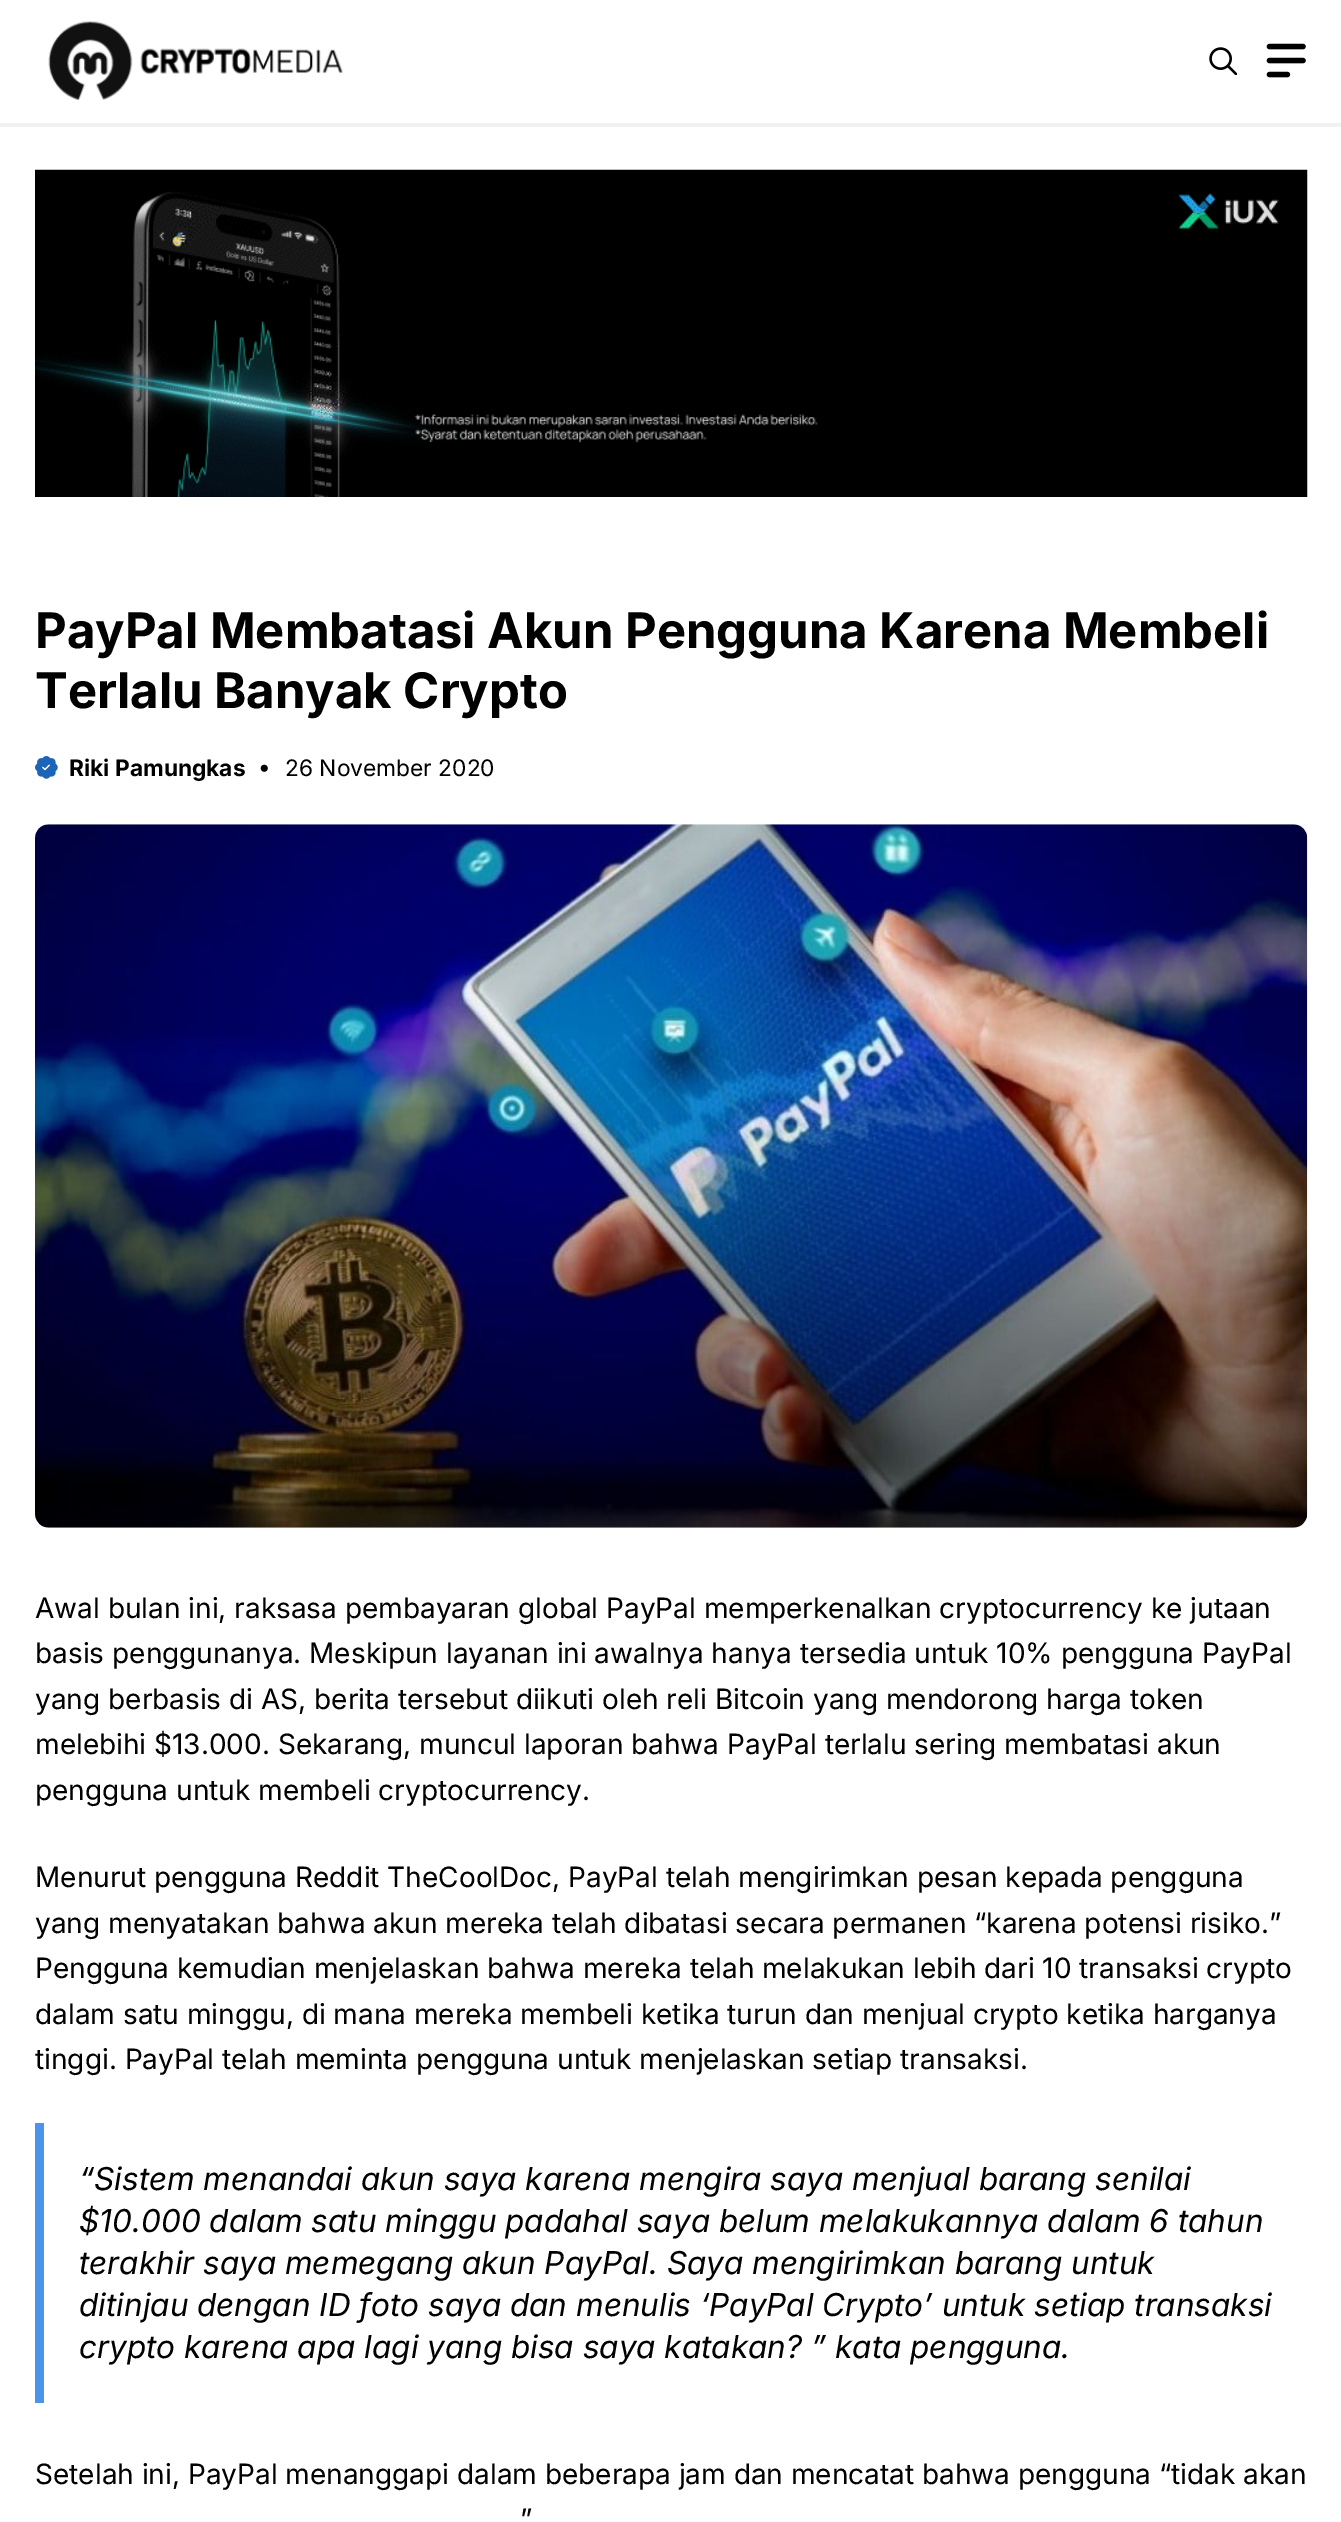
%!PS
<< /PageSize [1341 2522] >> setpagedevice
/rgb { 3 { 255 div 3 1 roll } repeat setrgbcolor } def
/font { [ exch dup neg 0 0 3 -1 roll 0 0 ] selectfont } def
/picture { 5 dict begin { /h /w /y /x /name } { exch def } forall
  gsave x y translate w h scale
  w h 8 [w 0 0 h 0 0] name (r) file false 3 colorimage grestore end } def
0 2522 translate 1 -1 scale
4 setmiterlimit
255 255 255 rgb
0 0 1341 2522 rectfill
241 241 241 rgb
0 123 1341 4 rectfill
(img/1.rgb) 48 21 295 79 picture
(img/2.rgb) 1209 47 28 28 picture
(img/3.rgb) 1266 43 40 35 picture
(img/4.rgb) 35 169 1273 328 picture
(img/5.rgb) 35 756 23 23 picture
(img/6.rgb) 260 764 8 8 picture
(img/7.rgb) 35 824 1273 704 picture
74 149 235 rgb
35 2123 9 280 rectfill
/Inter-Bold 49 font
0 0 0 rgb
35 648 moveto (PayPal Membatasi Akun Pengguna Karena Membeli) show
35 708 moveto (Terlalu Banyak Crypto) show
/Inter-Bold 22.75 font
69 776 moveto (Riki Pamungkas) show
/Inter-Regular 22.75 font
285 776 moveto (26 November 2020) show
/Inter-Regular 28 font
[
  [(Awal bulan ini, raksasa pembayaran global PayPal memperkenalkan cryptocurrency ke jutaan) 35 1618]
  [(basis penggunanya. Meskipun layanan ini awalnya hanya tersedia untuk 10% pengguna PayPal) 35 1663]
  [(yang berbasis di AS, berita tersebut diikuti oleh reli Bitcoin yang mendorong harga token) 35 1709]
  [(melebihi $13.000. Sekarang, muncul laporan bahwa PayPal terlalu sering membatasi akun) 35 1754]
  [(pengguna untuk membeli cryptocurrency.) 35 1800]
  [(Menurut pengguna Reddit TheCoolDoc, PayPal telah mengirimkan pesan kepada pengguna) 35 1887]
  [(yang menyatakan bahwa akun mereka telah dibatasi secara permanen “karena potensi risiko.”) 35 1933]
  [(Pengguna kemudian menjelaskan bahwa mereka telah melakukan lebih dari 10 transaksi crypto) 35 1978]
  [(dalam satu minggu, di mana mereka membeli ketika turun dan menjual crypto ketika harganya) 35 2024]
  [(tinggi. PayPal telah meminta pengguna untuk menjelaskan setiap transaksi.) 35 2069]
] { aload pop moveto show } forall
/Inter-Italic 31.5 font
[
  [(“Sistem menandai akun saya karena mengira saya menjual barang senilai) 79 2190]
  [($10.000 dalam satu minggu padahal saya belum melakukannya dalam 6 tahun) 79 2232]
  [(terakhir saya memegang akun PayPal. Saya mengirimkan barang untuk) 79 2274]
  [(ditinjau dengan ID foto saya dan menulis ‘PayPal Crypto’ untuk setiap transaksi) 79 2316]
  [(crypto karena apa lagi yang bisa saya katakan? ” kata pengguna.) 79 2358]
] { aload pop moveto show } forall
/Inter-Regular 28 font
35 2484 moveto (Setelah ini, PayPal menanggapi dalam beberapa jam dan mencatat bahwa pengguna “tidak akan) show
520 2529 moveto (”) show
showpage
